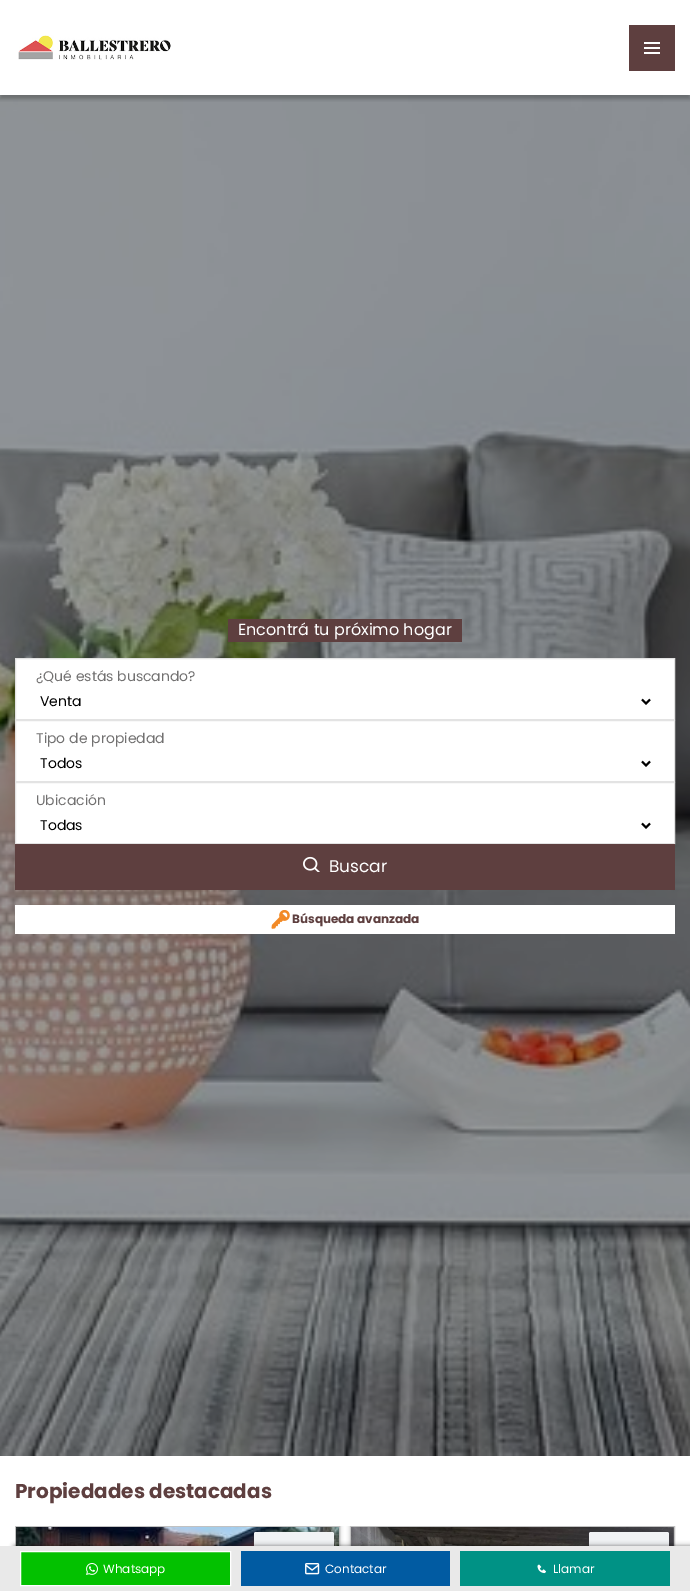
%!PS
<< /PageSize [690 1591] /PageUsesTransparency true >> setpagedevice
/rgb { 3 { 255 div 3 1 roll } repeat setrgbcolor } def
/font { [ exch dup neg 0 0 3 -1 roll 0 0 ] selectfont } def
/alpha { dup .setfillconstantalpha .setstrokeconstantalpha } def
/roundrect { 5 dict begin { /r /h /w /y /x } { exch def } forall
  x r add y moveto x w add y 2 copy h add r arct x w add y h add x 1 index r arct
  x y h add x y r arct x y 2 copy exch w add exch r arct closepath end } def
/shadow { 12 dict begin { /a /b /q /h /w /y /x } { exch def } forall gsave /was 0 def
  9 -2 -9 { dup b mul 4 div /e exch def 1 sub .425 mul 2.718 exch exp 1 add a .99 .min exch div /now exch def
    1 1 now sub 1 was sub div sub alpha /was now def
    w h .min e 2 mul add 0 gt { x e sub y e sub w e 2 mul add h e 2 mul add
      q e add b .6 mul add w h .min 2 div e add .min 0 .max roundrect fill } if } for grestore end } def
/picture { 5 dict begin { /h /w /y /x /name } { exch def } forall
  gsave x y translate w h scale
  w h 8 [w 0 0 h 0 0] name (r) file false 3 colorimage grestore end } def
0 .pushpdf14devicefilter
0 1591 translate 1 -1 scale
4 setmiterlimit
255 255 255 rgb
0 0 690 1591 rectfill
(img/3.rgb) 0 95 690 1361 picture
gsave
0 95 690 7 rectclip
0 0 0 rgb
0 4 690 95 0 2 0.25 shadow
grestore
(img/1.rgb) 18 35 153 25 picture
94 63 63 rgb
629 25 46 46 rectfill
(img/2.rgb) 644 42 16 12 picture
228 619 234 23 rectfill
255 255 255 rgb
15.5 658.5 moveto 674.5 658.5 lineto 674.5 719.5 lineto 15.5 719.5 lineto closepath gsave fill grestore
227 227 227 rgb
stroke
0 0 0 rgb
2 setlinewidth
642 699.5 moveto 646 703.5 lineto 650 699.5 lineto stroke
255 255 255 rgb
15.5 720.5 moveto 674.5 720.5 lineto 674.5 781.5 lineto 15.5 781.5 lineto closepath gsave fill grestore
227 227 227 rgb
1 setlinewidth
stroke
0 0 0 rgb
2 setlinewidth
642 761.5 moveto 646 765.5 lineto 650 761.5 lineto stroke
255 255 255 rgb
15.5 782.5 moveto 674.5 782.5 lineto 674.5 843.5 lineto 15.5 843.5 lineto closepath gsave fill grestore
227 227 227 rgb
1 setlinewidth
stroke
0 0 0 rgb
2 setlinewidth
642 823.5 moveto 646 827.5 lineto 650 823.5 lineto stroke
94 63 63 rgb
15 844 660 46 rectfill
(img/4.rgb) 303 856 17 16 picture
255 255 255 rgb
15 905 660 29 rectfill
(img/5.rgb) 271 910 19 19 picture
gsave
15 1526 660 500 rectclip
0 0 0 rgb
15 1526 325 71 0 2 0.25 shadow
grestore
193 193 193 rgb
1 setlinewidth
15.5 1526.5 324 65 rectstroke
(img/6.rgb) 16 1527 323 19 picture
241 243 245 rgb
254 1532 80 26 2 roundrect fill
gsave
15 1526 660 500 rectclip
0 0 0 rgb
350 1526 325 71 0 2 0.25 shadow
grestore
193 193 193 rgb
350.5 1526.5 324 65 rectstroke
(img/7.rgb) 351 1527 323 19 picture
241 243 245 rgb
589 1532 80 26 2 roundrect fill
0 0 0 rgb
14 1546 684 45 0 2.5 0.5 shadow
233 233 233 rgb
0 1546 690 45 rectfill
3 193 0 rgb
20.5 1551.5 moveto 230.5 1551.5 lineto 230.5 1585.5 lineto 20.5 1585.5 lineto closepath gsave fill grestore
255 255 255 rgb
stroke
(img/8.rgb) 86 1563 12 12 picture
1 91 162 rgb
241 1551 209 35 rectfill
(img/9.rgb) 305 1563 15 12 picture
0 146 133 rgb
460 1551 210 35 rectfill
(img/10.rgb) 537 1564 9 10 picture
/Poppins-Regular 16 font
255 255 255 rgb
238 635 moveto (Encontrá tu próximo hogar) show
/Poppins-Regular 14 font
114 113 113 rgb
36 681 moveto (¿Qué estás buscando?) show
0 0 0 rgb
40 706 moveto (Venta) show
114 113 113 rgb
36 743 moveto (Tipo de propiedad) show
0 0 0 rgb
40 768 moveto (Todos) show
114 113 113 rgb
36 805 moveto (Ubicación) show
0 0 0 rgb
40 830 moveto (Todas) show
/Poppins-Regular 17 font
255 255 255 rgb
329 872 moveto (Buscar) show
/Poppins-Bold 12 font
94 63 63 rgb
292 923 moveto (Búsqueda avanzada) show
/Poppins-Bold 20 font
15 1498 moveto (Propiedades destacadas) show
/Poppins-Regular 12 font
255 255 255 rgb
[
  [(Whatsapp) 103 1573]
  [(Contactar) 325 1573]
  [(Llamar) 553 1573]
] { aload pop moveto show } forall
.poppdf14devicefilter showpage
